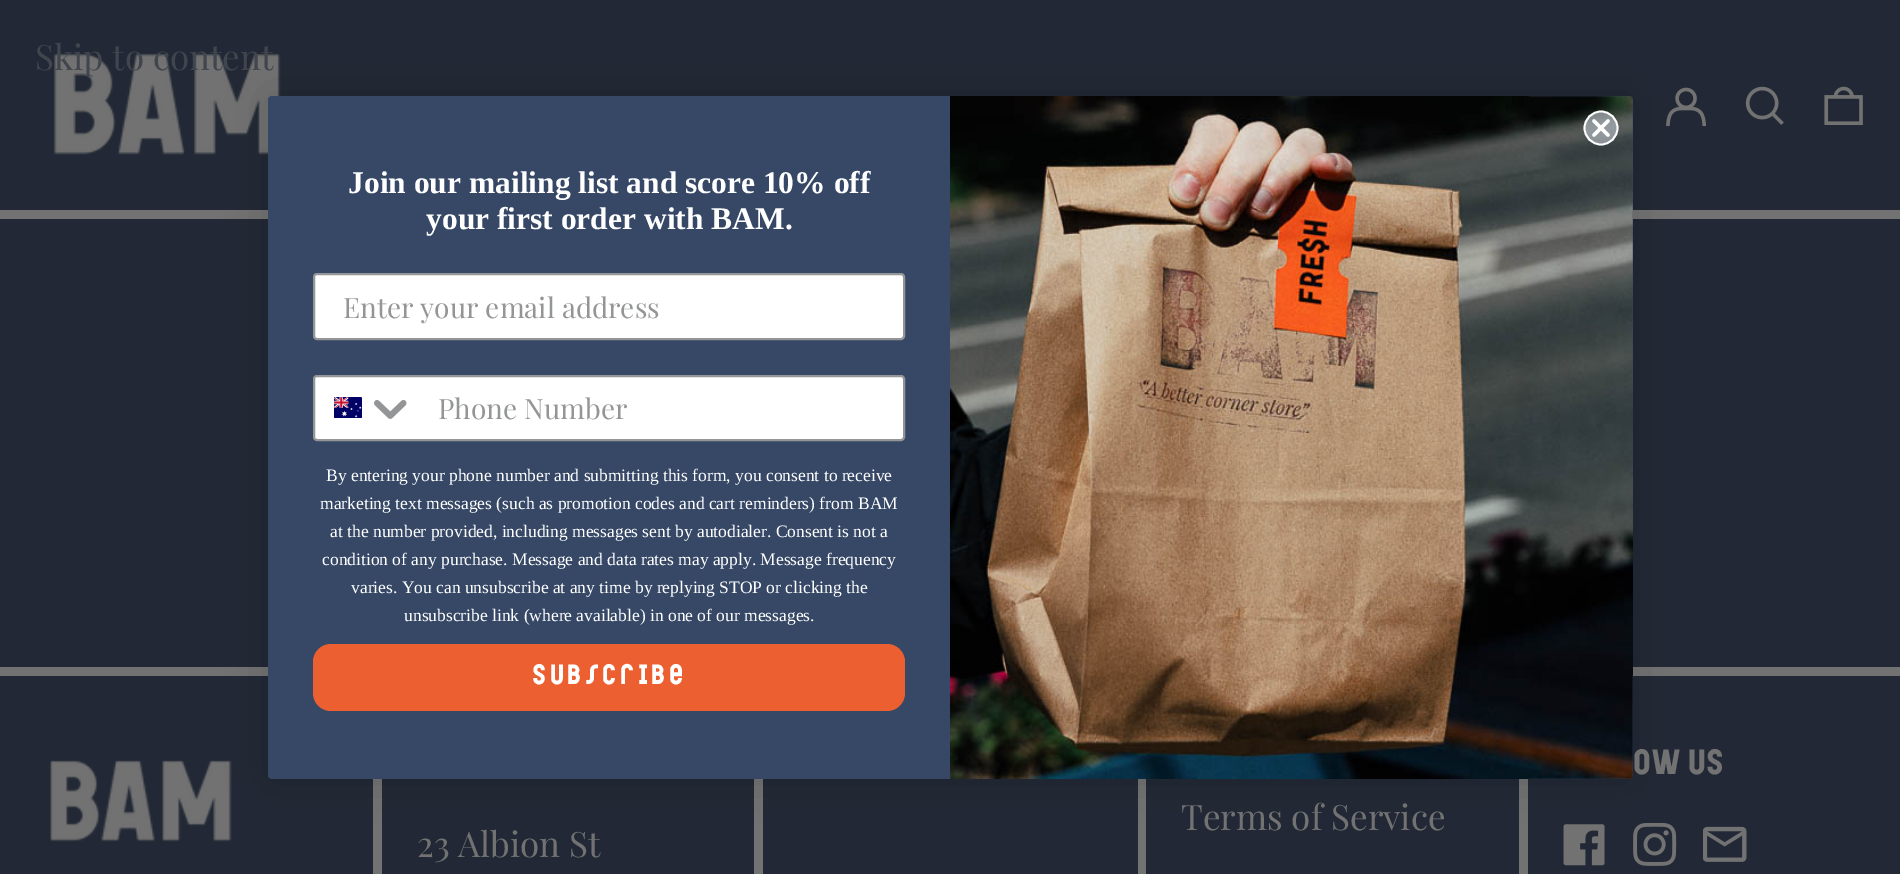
%!PS
<< /PageSize [1900 874] /PageUsesTransparency true >> setpagedevice
/rgb { 3 { 255 div 3 1 roll } repeat setrgbcolor } def
/font { [ exch dup neg 0 0 3 -1 roll 0 0 ] selectfont } def
/alpha { dup .setfillconstantalpha .setstrokeconstantalpha } def
/circle { newpath 0 360 arc closepath } def
/roundrect { 5 dict begin { /r /h /w /y /x } { exch def } forall
  x r add y moveto x w add y 2 copy h add r arct x w add y h add x 1 index r arct
  x y h add x y r arct x y 2 copy exch w add exch r arct closepath end } def
/shadow { 12 dict begin { /a /b /q /h /w /y /x } { exch def } forall gsave /was 0 def
  9 -2 -9 { dup b mul 4 div /e exch def 1 sub .425 mul 2.718 exch exp 1 add a .99 .min exch div /now exch def
    1 1 now sub 1 was sub div sub alpha /was now def
    w h .min e 2 mul add 0 gt { x e sub y e sub w e 2 mul add h e 2 mul add
      q e add b .6 mul add w h .min 2 div e add .min 0 .max roundrect fill } if } for grestore end } def
/picture { 5 dict begin { /h /w /y /x /name } { exch def } forall
  gsave x y translate w h scale
  w h 8 [w 0 0 h 0 0] name (r) file false 3 colorimage grestore end } def
0 .pushpdf14devicefilter
0 874 translate 1 -1 scale
4 setmiterlimit
34 40 53 rgb
0 0 1900 874 rectfill
114 114 114 rgb
0 210 1900 9 rectfill
(img/4.rgb) 53 53 228 102 picture
(img/5.rgb) 1666 87 41 40 picture
0 667 1900 9 rectfill
373 779 1155 95 rectfill
(img/8.rgb) 50 759 182 83 picture
34 40 53 rgb
763 779 375 95 rectfill
1146 779 373 95 rectfill
(img/9.rgb) 1563 824 42 42 picture
(img/10.rgb) 1633 823 44 43 picture
(img/11.rgb) 1703 826 44 36 picture
382 779 372 95 rectfill
0 0 0 rgb
268 96 1365 683 0 26 0.15 shadow
54 72 102 rgb
268 96 1365 683 4 roundrect fill
(img/3.rgb) 950 96 683 683 picture
0.65 alpha
180 187 195 rgb
1601 128 16.5 circle fill
1 alpha
255 255 255 rgb
1.8 setlinewidth
1601 128 16.5 circle stroke
3.5 setlinewidth
1 setlinecap
1 setlinejoin
1594 121 moveto 1608 135 lineto 1594 135 moveto 1608 121 lineto closepath stroke
314 274 590 65 3 roundrect gsave fill grestore
148 149 150 rgb
2 setlinewidth
0 setlinecap
0 setlinejoin
stroke
255 255 255 rgb
314 376 590 64 3 roundrect gsave fill grestore
148 149 150 rgb
stroke
(img/1.rgb) 334 397 28 21 picture
(img/2.rgb) 374 400 33 19 picture
235 95 49 rgb
313 644 592 67 18 roundrect fill
(img/6.rgb) 1745 86 39 39 picture
(img/7.rgb) 1824 86 39 39 picture
/PlayfairDisplay-Regular 35 font
65 69 77 rgb
35 70 moveto (Skip to content) show
/LiberationSerif-Bold 31.5 font
255 255 255 rgb
348 193 moveto (Join our mailing list and score 10% off) show
426 229 moveto (your first order with BAM.) show
/PlayfairDisplay-Regular 28 font
148 149 150 rgb
343 318 moveto (Enter your email address) show
438 419 moveto (Phone Number) show
/LiberationSerif-Regular 17.5 font
255 255 255 rgb
[
  [(By entering your phone number and submitting this form, you consent to receive) 326 481]
  [(marketing text messages \(such as promotion codes and cart reminders\) from BAM) 320 509]
  [(at the number provided, including messages sent by autodialer. Consent is not a) 330 537]
  [(condition of any purchase. Message and data rates may apply. Message frequency) 322 565]
  [(varies. You can unsubscribe at any time by replying STOP or clicking the) 351 593]
  [(unsubscribe link \(where available\) in one of our messages.) 404 621]
] { aload pop moveto show } forall
/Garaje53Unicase-Black 28 font
532 684 moveto 3.5 0 (Subscribe) ashow
/PlayfairDisplay-Regular 35 font
114 114 114 rgb
1181 830 moveto (Terms of Service) show
/Garaje53Unicase-Black 35 font
1633 774 moveto (OW US) show
/PlayfairDisplay-Regular 35 font
417 857 moveto (23 Albion St) show
.poppdf14devicefilter showpage
